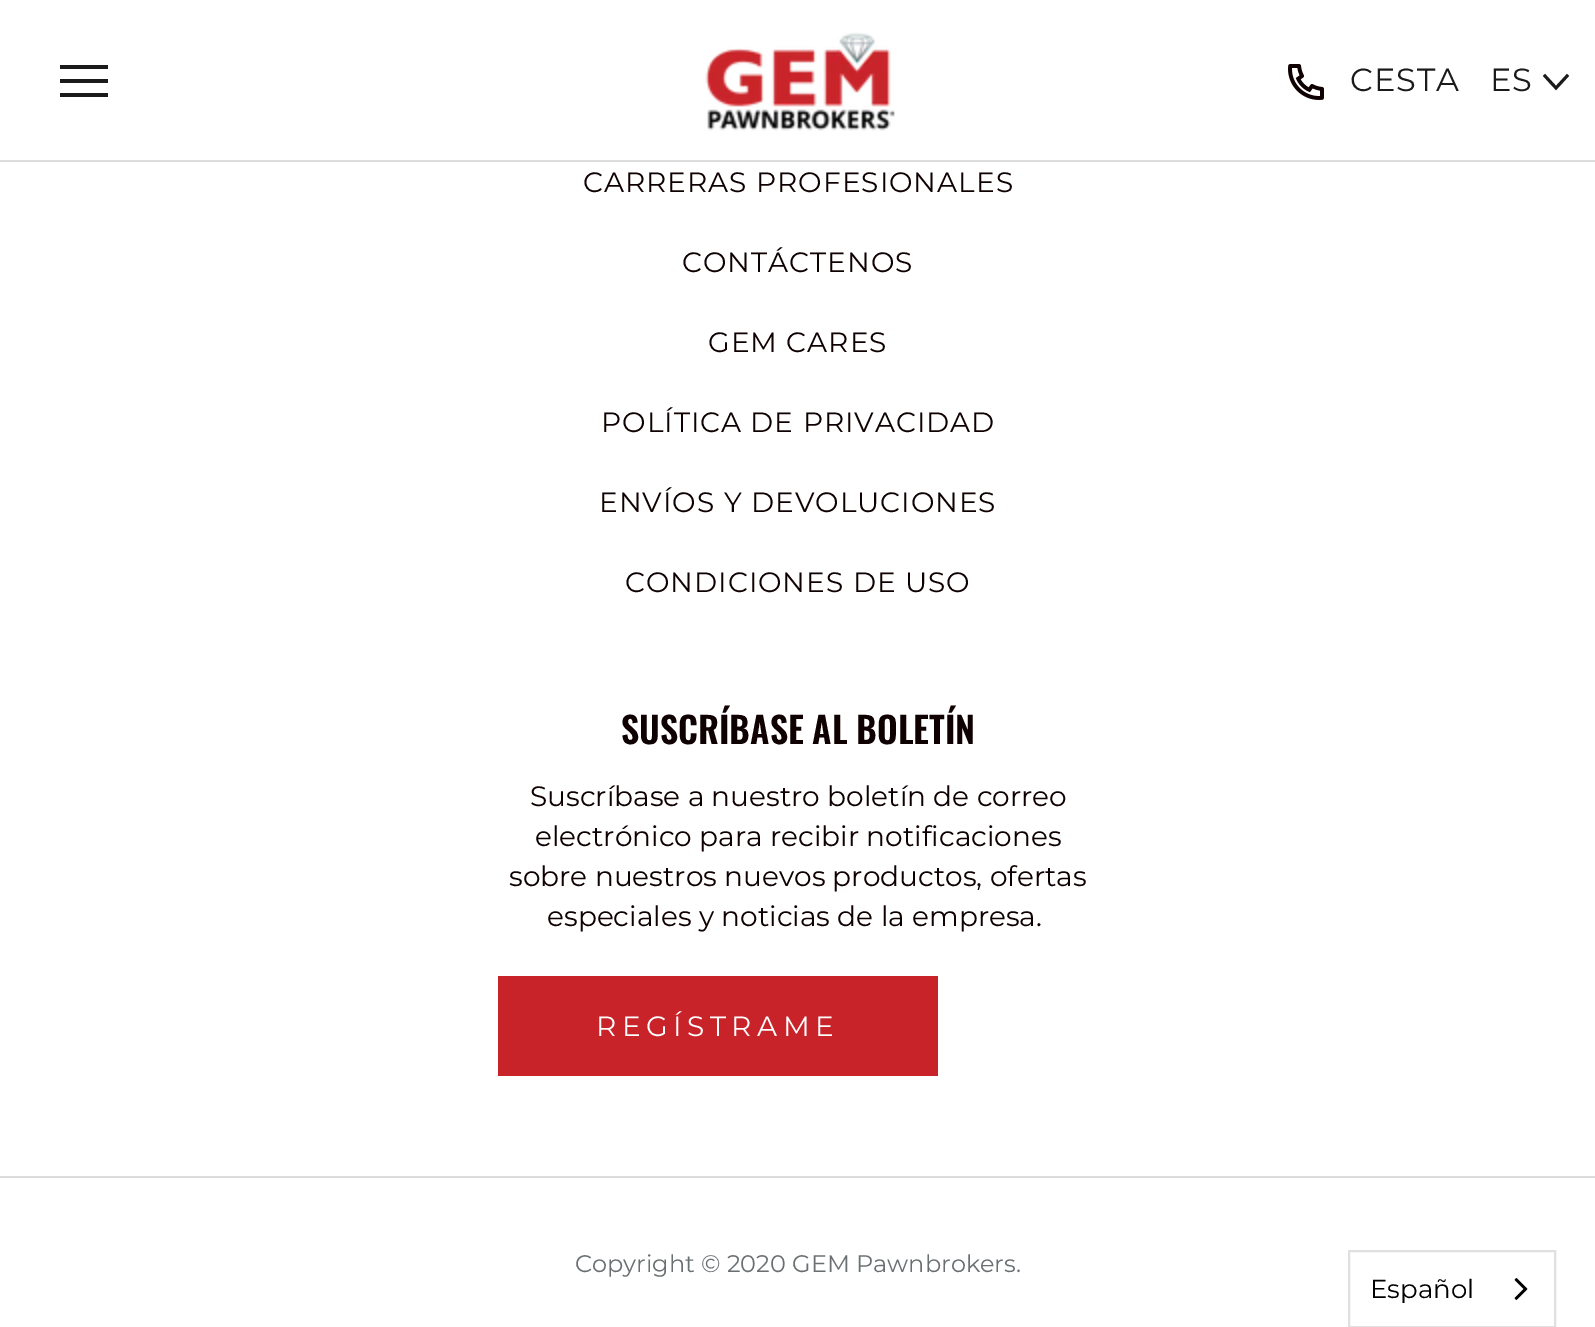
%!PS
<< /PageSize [1595 1327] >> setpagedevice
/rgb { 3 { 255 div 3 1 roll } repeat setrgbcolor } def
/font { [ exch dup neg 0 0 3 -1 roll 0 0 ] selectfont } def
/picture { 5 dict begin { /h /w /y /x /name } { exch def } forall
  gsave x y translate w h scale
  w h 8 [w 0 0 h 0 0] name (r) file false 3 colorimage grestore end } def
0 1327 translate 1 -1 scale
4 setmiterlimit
255 255 255 rgb
0 0 1595 1327 rectfill
221 221 221 rgb
0 160 1595 2 rectfill
28 27 27 rgb
60 97 moveto 60 93 lineto 108 93 lineto 108 97 lineto closepath 60 79 moveto 108 79 lineto 108 83 lineto 60 83 lineto closepath 60 65 moveto 108 65 lineto 108 69 lineto 60 69 lineto closepath fill
(img/1.rgb) 705 32 190 99 picture
(img/2.rgb) 1288 64 36 36 picture
2.9 setlinewidth
2 setlinecap
1567 76 moveto 1556 88 lineto 1545 76 lineto stroke
200 35 40 rgb
498 976 440 100 rectfill
219 219 219 rgb
0 1176 1595 2 rectfill
224 224 224 rgb
2 setlinewidth
0 setlinecap
1349 1251 206 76 rectstroke
(img/3.rgb) 1514 1278 14 22 picture
/Montserrat-Regular 32 font
28 27 27 rgb
1350 91 moveto 1 0 (CESTA) ashow
1490 91 moveto 1 0 (ES) ashow
/Montserrat-Regular 28 font
15 1 1 rgb
583 192 moveto 1 0 (CARRERAS PROFESIONALES) ashow
682 272 moveto 1 0 (CONTÁCTENOS) ashow
708 352 moveto 1 0 (GEM CARES) ashow
601 432 moveto 1 0 (POLÍTICA DE PRIVACIDAD) ashow
599 512 moveto 1 0 (ENVÍOS Y DEVOLUCIONES) ashow
625 592 moveto 1 0 (CONDICIONES DE USO) ashow
/Oswald-SemiBold 36 font
621 744 moveto (SUSCRÍBASE AL BOLETÍN) show
/Montserrat-Regular 28 font
[
  [(Suscríbase a nuestro boletín de correo) 530 806]
  [(electrónico para recibir notificaciones) 535 846]
  [(sobre nuestros nuevos productos, ofertas) 509 886]
  [(especiales y noticias de la empresa.) 547 926]
] { aload pop moveto show } forall
255 255 255 rgb
596 1036 moveto 5.5 0 (REGÍSTRAME) ashow
/Montserrat-Regular 24 font
106 112 114 rgb
575 1272 moveto (Copyright © 2020 GEM Pawnbrokers.) show
/Montserrat-Regular 26 font
0 0 0 rgb
1370 1298 moveto (Español) show
showpage
